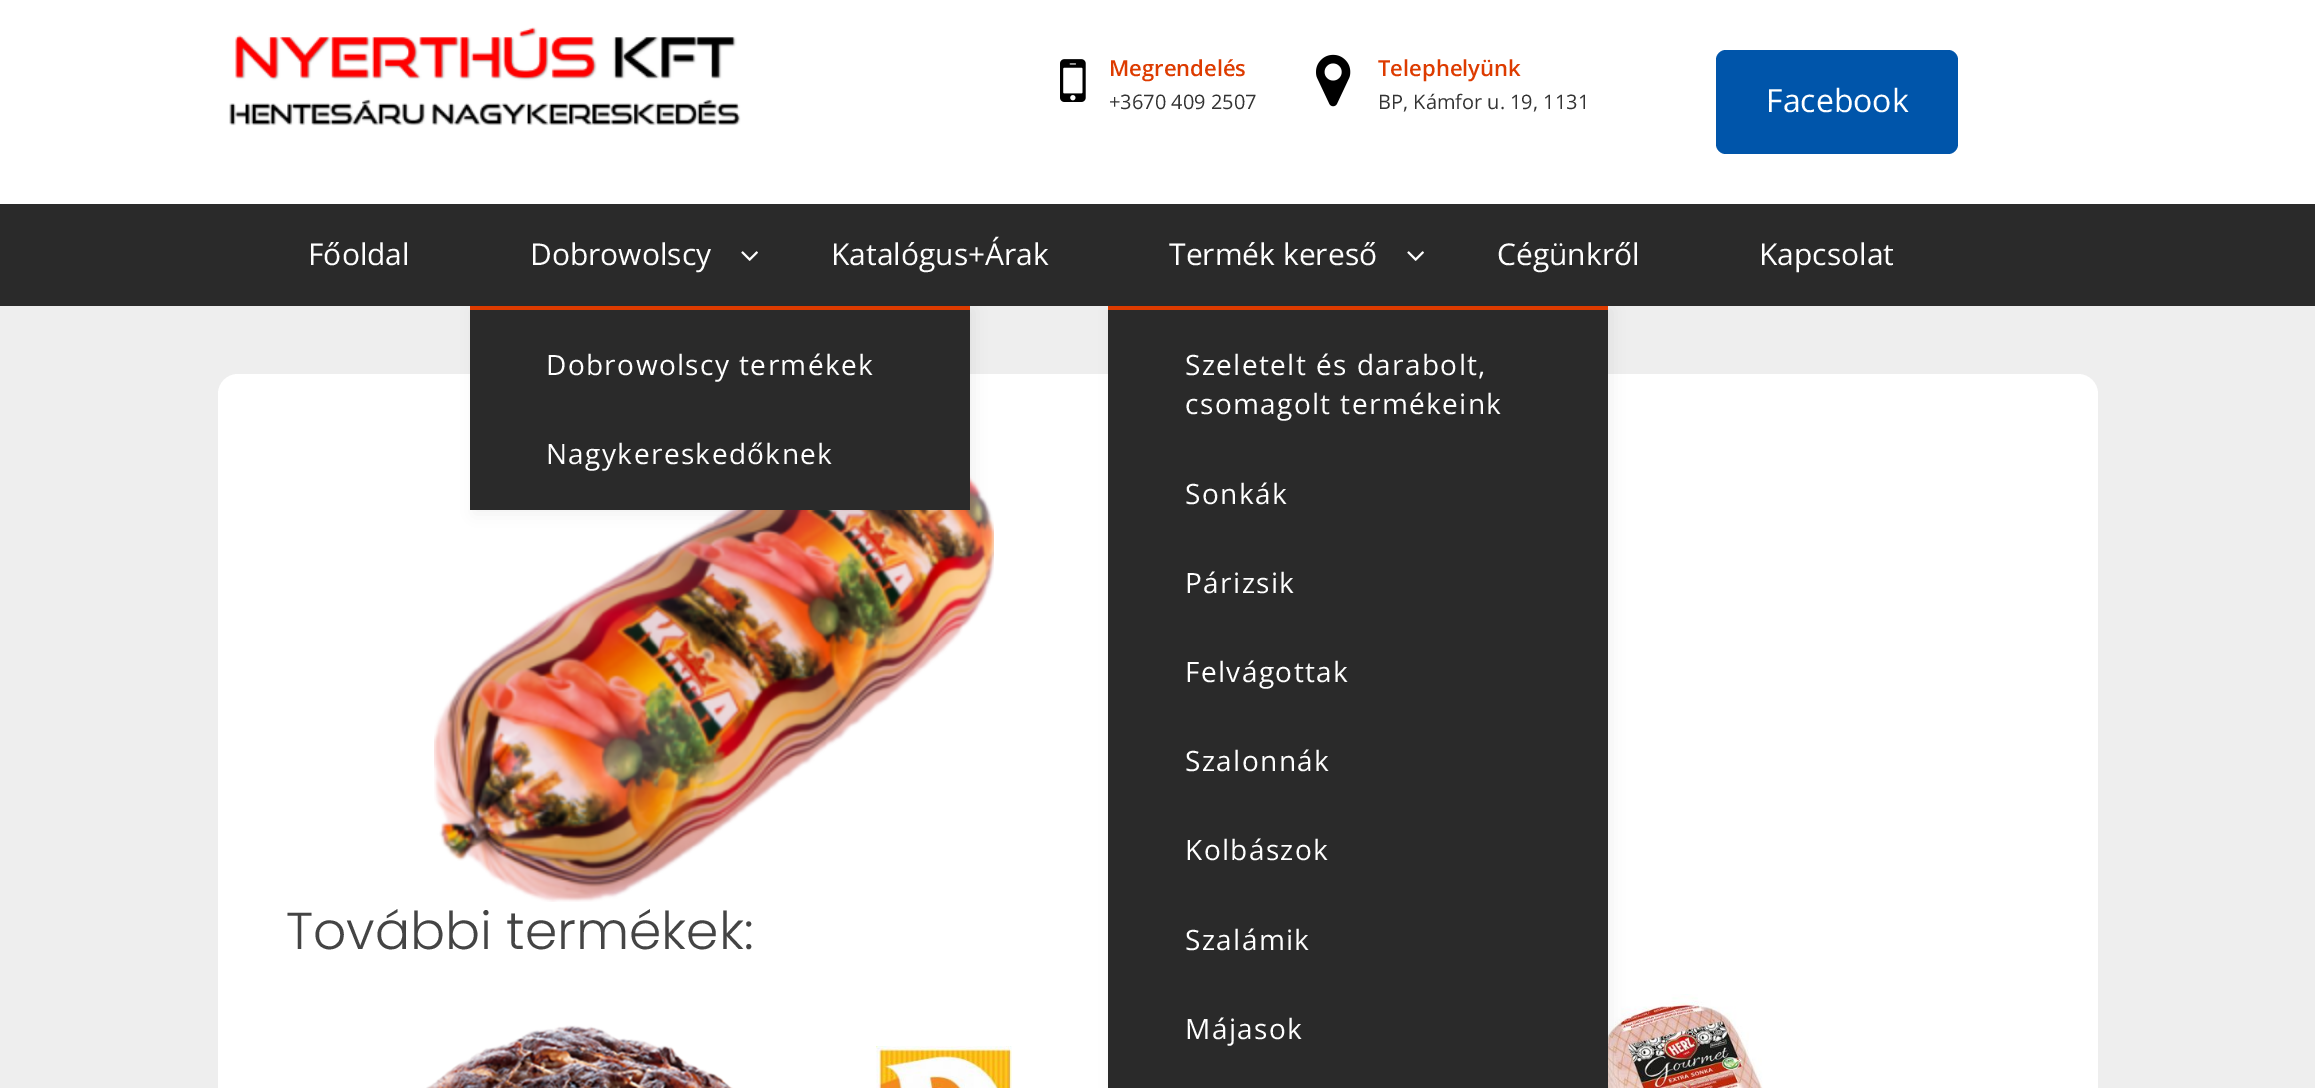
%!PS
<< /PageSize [2315 1088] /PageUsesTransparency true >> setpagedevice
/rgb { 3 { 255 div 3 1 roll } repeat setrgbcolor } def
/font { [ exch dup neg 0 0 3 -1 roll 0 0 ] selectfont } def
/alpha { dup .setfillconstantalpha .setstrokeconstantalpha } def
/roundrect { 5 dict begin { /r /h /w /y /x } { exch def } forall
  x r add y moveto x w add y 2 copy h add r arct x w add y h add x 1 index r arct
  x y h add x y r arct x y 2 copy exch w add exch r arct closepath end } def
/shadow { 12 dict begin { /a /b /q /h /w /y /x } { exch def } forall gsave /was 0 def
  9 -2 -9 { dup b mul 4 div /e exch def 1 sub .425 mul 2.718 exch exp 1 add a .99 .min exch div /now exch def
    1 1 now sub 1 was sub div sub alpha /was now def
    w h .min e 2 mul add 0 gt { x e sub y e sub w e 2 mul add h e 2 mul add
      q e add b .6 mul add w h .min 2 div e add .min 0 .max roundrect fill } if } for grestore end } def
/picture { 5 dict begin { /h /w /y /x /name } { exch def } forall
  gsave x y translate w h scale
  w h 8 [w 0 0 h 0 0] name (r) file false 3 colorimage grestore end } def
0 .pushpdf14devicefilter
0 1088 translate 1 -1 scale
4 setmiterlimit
238 238 238 rgb
0 0 2315 1088 rectfill
255 255 255 rgb
0 0 2315 204 rectfill
(img/1.rgb) 229 27 512 99 picture
(img/2.rgb) 1060 59 26 43 picture
(img/3.rgb) 1316 54 35 53 picture
0 85 170 rgb
1716 50 242 104 10 roundrect fill
42 42 42 rgb
0 204 2315 102 rectfill
(img/4.rgb) 741 251 17 10 picture
255 255 255 rgb
218 374 1880 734 20 roundrect fill
(img/5.rgb) 434 475 560 427 picture
0 0 0 rgb
474 310 500 204 0 8 0.05 shadow
42 42 42 rgb
470 310 500 200 rectfill
221 59 0 rgb
470 306 500 4 rectfill
(img/4.rgb) 1407 251 17 10 picture
(img/8.rgb) 1608 994 155 94 picture
0 0 0 rgb
1112 310 500 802 0 8 0.05 shadow
42 42 42 rgb
1108 310 500 778 rectfill
221 59 0 rgb
1108 306 500 4 rectfill
(img/6.rgb) 426 1025 307 63 picture
(img/7.rgb) 876 1046 136 42 picture
/OpenSans-SemiBold 22 font
1109 76 moveto (Megrendelés) show
/OpenSans-Regular 20 font
51 51 51 rgb
1109 109 moveto (+3670 409 2507) show
/OpenSans-SemiBold 22 font
221 59 0 rgb
1378 76 moveto (Telephelyünk) show
/OpenSans-Regular 20 font
51 51 51 rgb
1378 109 moveto (BP, Kámfor u. 19, 1131) show
/OpenSans-Regular 32 font
255 255 255 rgb
1766 112 moveto (Facebook) show
/OpenSans-Regular 30 font
308 265 moveto (Főoldal) show
530 265 moveto (Dobrowolscy) show
/OpenSans-Regular 28 font
546 375 moveto 1.4 0 (Dobrowolscy termékek) ashow
546 464 moveto 1.4 0 (Nagykereskedőknek) ashow
/OpenSans-Regular 30 font
831 265 moveto (Katalógus+Árak) show
1169 265 moveto (Termék kereső) show
/OpenSans-Regular 28 font
1185 375 moveto 1.4 0 (Szeletelt és darabolt,) ashow
1185 414 moveto 1.4 0 (csomagolt termékeink) ashow
1185 504 moveto 1.4 0 (Sonkák) ashow
1185 593 moveto 1.4 0 (Párizsik) ashow
1185 682 moveto 1.4 0 (Felvágottak) ashow
1185 771 moveto 1.4 0 (Szalonnák) ashow
1185 860 moveto 1.4 0 (Kolbászok) ashow
1185 950 moveto 1.4 0 (Szalámik) ashow
1185 1039 moveto 1.4 0 (Májasok) ashow
/OpenSans-Regular 30 font
1497 265 moveto (Cégünkről) show
1759 265 moveto (Kapcsolat) show
/Poppins-Light 52 font
68 68 68 rgb
286 949 moveto (További termékek:) show
.poppdf14devicefilter showpage
